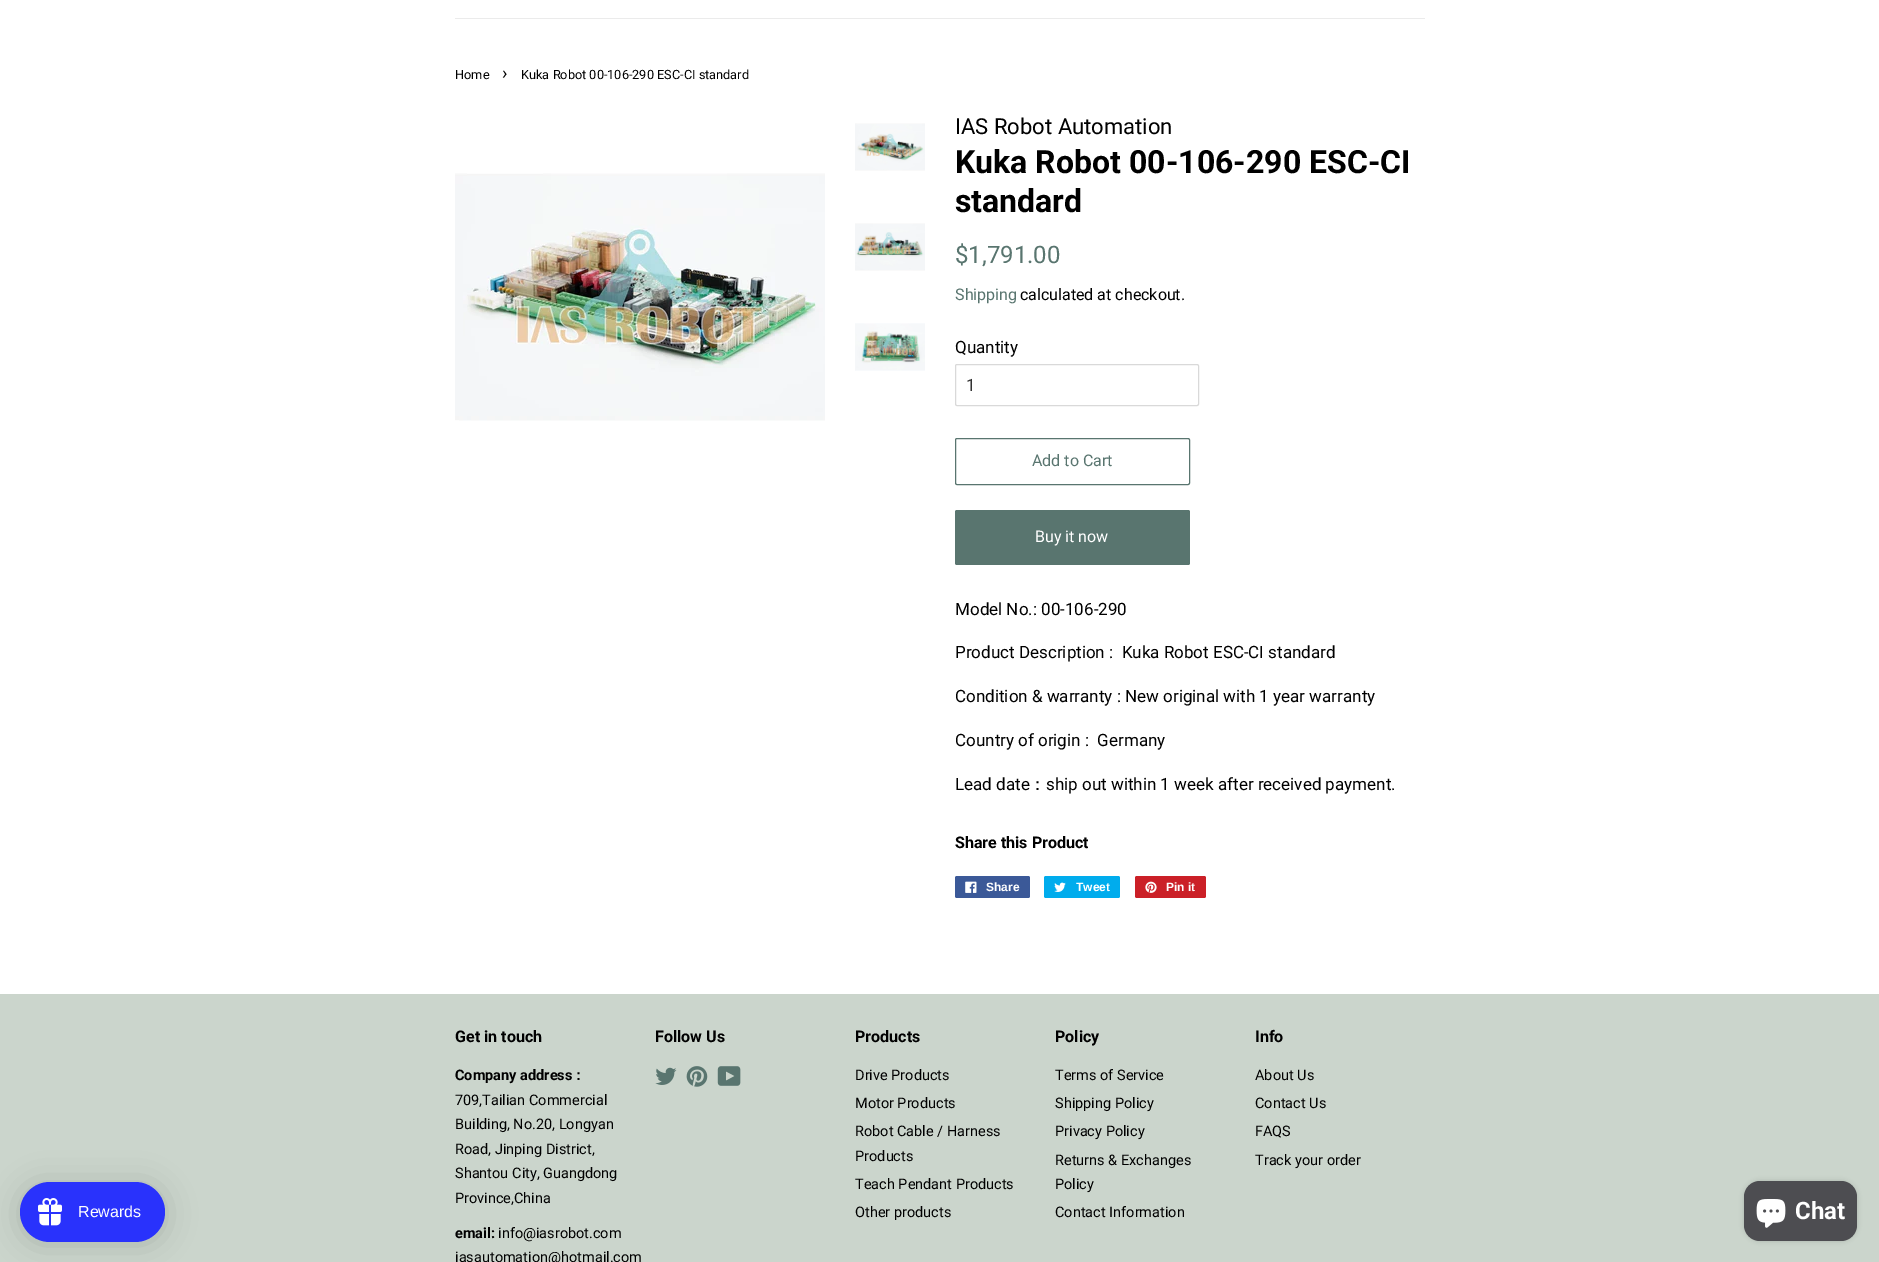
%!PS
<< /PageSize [1879 1262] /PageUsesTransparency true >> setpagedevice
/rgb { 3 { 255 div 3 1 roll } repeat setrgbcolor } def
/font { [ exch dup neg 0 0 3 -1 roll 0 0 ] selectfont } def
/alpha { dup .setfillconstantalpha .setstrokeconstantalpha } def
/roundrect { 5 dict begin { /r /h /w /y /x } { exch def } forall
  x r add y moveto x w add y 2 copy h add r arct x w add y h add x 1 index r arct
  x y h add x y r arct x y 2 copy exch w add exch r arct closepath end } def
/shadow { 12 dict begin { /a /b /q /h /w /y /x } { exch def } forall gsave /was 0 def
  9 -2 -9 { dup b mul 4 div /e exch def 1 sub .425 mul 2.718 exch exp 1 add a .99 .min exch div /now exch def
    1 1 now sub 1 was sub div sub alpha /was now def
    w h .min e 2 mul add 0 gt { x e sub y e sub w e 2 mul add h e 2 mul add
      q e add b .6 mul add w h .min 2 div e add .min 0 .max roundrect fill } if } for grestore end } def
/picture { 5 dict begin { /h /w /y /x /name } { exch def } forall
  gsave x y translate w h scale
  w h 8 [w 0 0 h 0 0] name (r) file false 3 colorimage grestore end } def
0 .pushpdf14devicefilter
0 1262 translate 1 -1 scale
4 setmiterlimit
255 255 255 rgb
0 0 1879 1262 rectfill
235 235 235 rgb
455 18 970 1 rectfill
(img/1.rgb) 455 173 370 248 picture
(img/2.rgb) 855 123 70 48 picture
(img/3.rgb) 855 223 70 48 picture
(img/4.rgb) 855 323 70 48 picture
217 217 217 rgb
955.5 364.5 243 41 1.5 roundrect stroke
89 117 111 rgb
955.5 438.5 234 46 1.5 roundrect stroke
955 510 235 55 2 roundrect fill
59 89 152 rgb
955 876 75 22 2 roundrect fill
(img/5.rgb) 965 881 12 12 picture
0 172 237 rgb
1044 876 76 22 2 roundrect fill
(img/6.rgb) 1054 882 12 10 picture
203 32 39 rgb
1135 876 71 22 2 roundrect fill
(img/7.rgb) 1145 881 12 12 picture
203 213 204 rgb
0 994 1879 268 rectfill
0 0 0 rgb
20 1184 145 60 30 15 0.15 shadow
41 50 252 rgb
20 1182 145 60 30 roundrect fill
(img/8.rgb) 38 1198 24 28 picture
(img/9.rgb) 655 1067 22 18 picture
(img/10.rgb) 686 1066 22 21 picture
(img/11.rgb) 717 1066 24 20 picture
0 0 0 rgb
1744 1181 113 60 16 2.5 0.15 shadow
77 77 81 rgb
1744 1181 113 60 16 roundrect fill
(img/12.rgb) 1756 1199 30 29 picture
/Roboto-Regular 12.75 font
0 0 0 rgb
455 79 moveto (Home) show
/Roboto-Regular 18 font
502 79 moveto (›) show
/Roboto-Regular 12.75 font
521 79 moveto (Kuka Robot 00-106-290 ESC-CI standard) show
/Roboto-Regular 22 font
955 134 moveto (IAS Robot Automation) show
/Roboto-Bold 32 font
955 173 moveto (Kuka Robot 00-106-290 ESC-CI) show
955 212 moveto (standard) show
/Roboto-Regular 24 font
89 117 111 rgb
955 263 moveto ($1,791.00) show
/Roboto-Regular 16 font
955 300 moveto (Shipping) show
0 0 0 rgb
1020 300 moveto (calculated at checkout.) show
/Roboto-Regular 17 font
955 353 moveto (Quantity) show
51 51 51 rgb
966 391 moveto (1) show
/Roboto-Regular 16 font
89 117 111 rgb
1032 466 moveto (Add to Cart) show
255 255 255 rgb
1035 542 moveto (Buy it now) show
/Roboto-Regular 17 font
0 0 0 rgb
[
  [(Model No.: 00-106-290) 955 615]
  [(Product Description :  Kuka Robot ESC-CI standard) 955 658]
  [(Condition & warranty : New original with 1 year warranty) 955 702]
  [(Country of origin :  Germany) 955 746]
  [(Lead date) 955 790]
] { aload pop moveto show } forall
/WenQuanYiZenHei-Medium 17 font
1029 790 moveto (：) show
/Roboto-Regular 17 font
1046 790 moveto (ship out within 1 week after received payment.) show
/Roboto-Bold 16 font
955 848 moveto (Share this Product) show
/LiberationSans-Bold 12 font
255 255 255 rgb
[
  [(Share) 986 891]
  [(Tweet) 1076 891]
  [(Pin it) 1166 891]
] { aload pop moveto show } forall
/LiberationSans-Regular 16 font
78 1217 moveto (Rewards) show
/Roboto-Bold 16 font
0 0 0 rgb
455 1042 moveto (Get in touch) show
/Roboto-Bold 14.5 font
455 1080 moveto (Company address) show
/WenQuanYiZenHei-Bold 14.5 font
571 1080 moveto (：) show
/Roboto-Regular 14.5 font
[
  [(709,Tailian Commercial) 455 1105]
  [(Building, No.20, Longyan) 455 1129]
  [(Road, Jinping District,) 455 1154]
  [(Shantou City, Guangdong) 455 1178]
  [(Province,China) 455 1203]
] { aload pop moveto show } forall
/Roboto-Bold 14.5 font
455 1238 moveto (email:) show
/Roboto-Regular 14.5 font
498 1238 moveto (info@iasrobot.com) show
455 1262 moveto (iasautomation@hotmail.com) show
/Roboto-Bold 16 font
655 1042 moveto (Follow Us) show
855 1042 moveto (Products) show
/Roboto-Regular 14.5 font
[
  [(Drive Products) 855 1080]
  [(Motor Products) 855 1108]
  [(Robot Cable / Harness) 855 1136]
  [(Products) 855 1161]
  [(Teach Pendant Products) 855 1189]
  [(Other products) 855 1217]
] { aload pop moveto show } forall
/Roboto-Bold 16 font
1055 1042 moveto (Policy) show
/Roboto-Regular 14.5 font
[
  [(Terms of Service) 1055 1080]
  [(Shipping Policy) 1055 1108]
  [(Privacy Policy) 1055 1136]
  [(Returns & Exchanges) 1055 1165]
  [(Policy) 1055 1189]
  [(Contact Information) 1055 1217]
] { aload pop moveto show } forall
/Roboto-Bold 16 font
1255 1042 moveto (Info) show
/Roboto-Regular 14.5 font
[
  [(About Us) 1255 1080]
  [(Contact Us) 1255 1108]
  [(FAQS) 1255 1136]
  [(Track your order) 1255 1165]
] { aload pop moveto show } forall
/Roboto-Bold 24 font
255 255 255 rgb
1795 1219 moveto (Chat) show
.poppdf14devicefilter showpage
